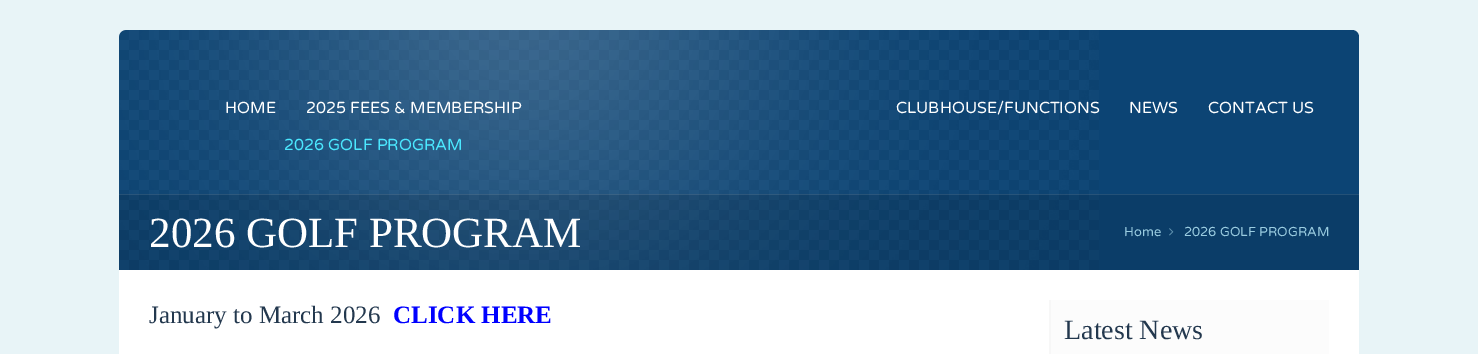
%!PS
<< /PageSize [1478 354] /PageUsesTransparency true >> setpagedevice
/rgb { 3 { 255 div 3 1 roll } repeat setrgbcolor } def
/font { [ exch dup neg 0 0 3 -1 roll 0 0 ] selectfont } def
/alpha { dup .setfillconstantalpha .setstrokeconstantalpha } def
/picture { 5 dict begin { /h /w /y /x /name } { exch def } forall
  gsave x y translate w h scale
  w h 8 [w 0 0 h 0 0] name (r) file false 3 colorimage grestore end } def
0 .pushpdf14devicefilter
0 354 translate 1 -1 scale
4 setmiterlimit
232 244 247 rgb
0 0 1478 354 rectfill
12 68 116 rgb
126 30 moveto 1352 30 lineto 1356 30 1359 33 1359 37 curveto 1359 270 lineto 119 270 lineto 119 37 lineto 119 33 122 30 126 30 curveto closepath fill
(img/1.rgb) 119 30 980 240 picture
0.1 alpha
0 0 0 rgb
119 194 1240 76 rectfill
255 255 255 rgb
119 194 1240 1 rectfill
1 alpha
(img/2.rgb) 1169 228 5 8 picture
[
  [119 270 1240 84 255 255 255]
  [1051 300 278 54 252 252 252]
  [1049 300 2 54 247 247 247]
] { aload pop rgb rectfill } forall
/VarelaRound-Regular 16 font
255 255 255 rgb
225 113 moveto (HOME) show
306 113 moveto (2025 FEES & MEMBERSHIP) show
75 232 255 rgb
284 150 moveto (2026 GOLF PROGRAM) show
255 255 255 rgb
[
  [(CLUBHOUSE/FUNCTIONS) 896 113]
  [(NEWS) 1129 113]
  [(CONTACT US) 1208 113]
] { aload pop moveto show } forall
/LiberationSerif-Regular 43 font
149 247 moveto (2026 GOLF PROGRAM) show
/VarelaRound-Regular 13 font
154 204 224 rgb
1124 236 moveto (Home) show
1184 236 moveto (2026 GOLF PROGRAM) show
/LiberationSerif-Regular 25 font
35 56 78 rgb
149 323 moveto (January to March 2026) show
/LiberationSerif-Bold 25 font
0 0 255 rgb
393 323 moveto (CLICK HERE) show
/LiberationSerif-Regular 28 font
35 56 78 rgb
1064 339 moveto (Latest News) show
.poppdf14devicefilter showpage
